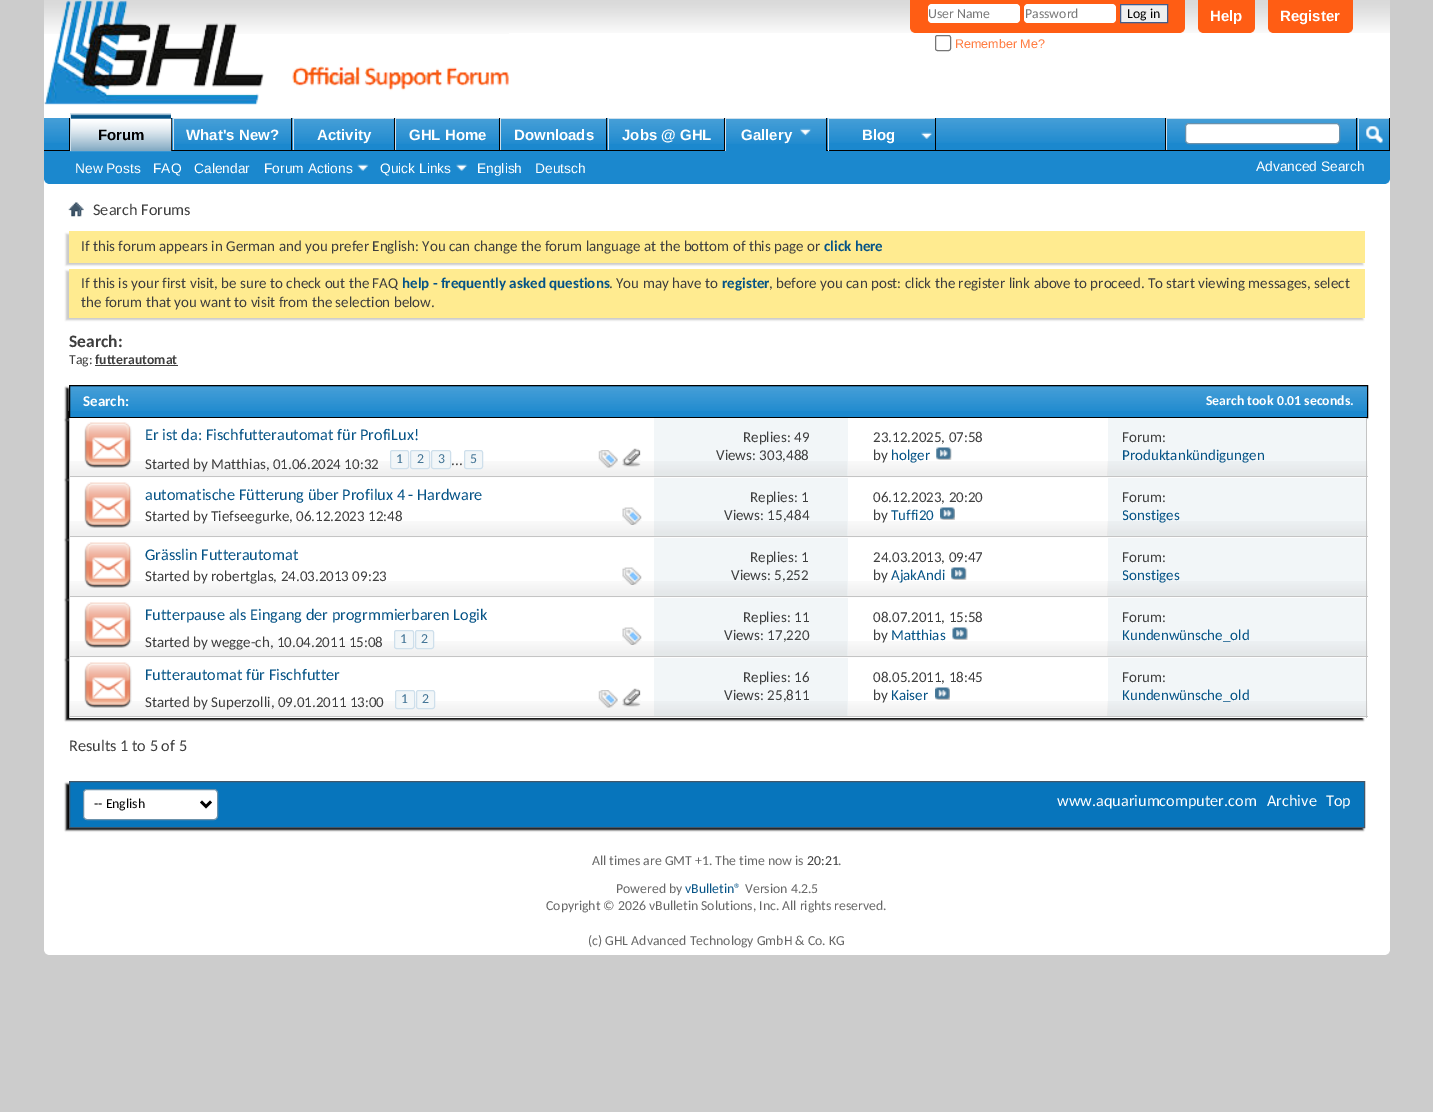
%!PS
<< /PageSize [1433 1112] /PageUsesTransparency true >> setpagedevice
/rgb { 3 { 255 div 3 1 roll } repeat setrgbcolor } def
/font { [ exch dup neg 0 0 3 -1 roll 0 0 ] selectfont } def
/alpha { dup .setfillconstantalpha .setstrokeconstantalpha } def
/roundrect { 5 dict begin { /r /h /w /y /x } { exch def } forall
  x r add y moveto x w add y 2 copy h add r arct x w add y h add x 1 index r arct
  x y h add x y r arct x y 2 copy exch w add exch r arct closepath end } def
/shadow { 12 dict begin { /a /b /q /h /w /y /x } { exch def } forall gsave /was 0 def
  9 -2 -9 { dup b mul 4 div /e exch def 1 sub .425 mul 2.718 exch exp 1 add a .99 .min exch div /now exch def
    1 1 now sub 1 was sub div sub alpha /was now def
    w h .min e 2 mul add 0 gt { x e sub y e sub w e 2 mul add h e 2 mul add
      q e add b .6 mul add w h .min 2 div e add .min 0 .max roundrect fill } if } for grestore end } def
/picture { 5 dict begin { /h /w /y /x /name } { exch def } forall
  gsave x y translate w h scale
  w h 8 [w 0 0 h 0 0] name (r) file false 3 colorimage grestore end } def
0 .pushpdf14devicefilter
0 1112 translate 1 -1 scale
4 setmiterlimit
204 204 204 rgb
0 0 1433 1112 rectfill
255 255 255 rgb
44 0 moveto 1390 0 lineto 1390 949 lineto 1390 952.5 1387.5 955 1384 955 curveto 50 955 lineto 46.5 955 44 952.5 44 949 curveto closepath fill
(img/1.rgb) 44 0 1346 33 picture
(img/2.rgb) 44 0 465 105 picture
255 93 20 rgb
910 0 moveto 1185 0 lineto 1185 27 lineto 1185 30.5 1182.5 33 1179 33 curveto 916 33 lineto 912.5 33 910 30.5 910 27 curveto closepath fill
255 255 255 rgb
928 4 92 19 4 roundrect fill
1024 4 92 19 4 roundrect fill
239 239 239 rgb
1120.5 4.5 moveto 1167.5 4.5 lineto 1167.5 22.5 lineto 1120.5 22.5 lineto closepath gsave fill grestore
65 93 141 rgb
stroke
118 118 118 rgb
935.5 35.5 15 15 2 roundrect stroke
255 93 20 rgb
1198 0 moveto 1255 0 lineto 1255 27 lineto 1255 30.5 1252.5 33 1249 33 curveto 1204 33 lineto 1200.5 33 1198 30.5 1198 27 curveto closepath fill
1268 0 moveto 1353 0 lineto 1353 27 lineto 1353 30.5 1350.5 33 1347 33 curveto 1274 33 lineto 1270.5 33 1268 30.5 1268 27 curveto closepath fill
27 136 206 rgb
44 118 moveto 1390 118 lineto 1390 178 lineto 1390 181.5 1387.5 184 1384 184 curveto 50 184 lineto 46.5 184 44 181.5 44 178 curveto closepath fill
(img/3.rgb) 44 118 1345 25 picture
[
  [171 118 1 32 0 0 0]
  [69 118 1 32 0 0 0]
  [291 118 1 33 0 0 0]
  [174 119 117 24 27 136 206]
] { aload pop rgb rectfill } forall
(img/5.rgb) 172 118 120 26 picture
[
  [173 118 118 1 206 223 235]
  [173 118 1 33 206 223 235]
  [394 118 1 33 0 0 0]
  [294 119 100 24 27 136 206]
] { aload pop rgb rectfill } forall
(img/6.rgb) 292 118 102 26 picture
[
  [293 118 101 1 206 223 235]
  [293 118 1 33 206 223 235]
  [499 118 1 33 0 0 0]
  [395 118 104 1 206 223 235]
  [395 118 1 33 206 223 235]
  [606 118 1 33 0 0 0]
  [500 118 106 1 206 223 235]
  [500 118 1 33 206 223 235]
  [724 118 1 33 0 0 0]
  [609 119 115 24 27 136 206]
] { aload pop rgb rectfill } forall
(img/9.rgb) 607 118 117 26 picture
[
  [608 118 116 1 206 223 235]
  [608 118 1 33 206 223 235]
  [44 150 1346 1 0 0 0]
  [71 114 100 37 5 83 134]
] { aload pop rgb rectfill } forall
(img/4.rgb) 70 113 102 39 picture
[
  [70 113 101 1 206 223 235]
  [70 113 1 38 206 223 235]
  [396 119 103 24 27 136 206]
] { aload pop rgb rectfill } forall
(img/7.rgb) 396 119 103 25 picture
501 119 105 24 rectfill
(img/8.rgb) 501 119 106 25 picture
0 0 0 rgb
826 118 1 33 rectfill
27 136 206 rgb
726 119 100 32 rectfill
(img/10.rgb) 726 119 101 25 picture
206 223 235 rgb
725 118 101 1 rectfill
725 118 1 33 rectfill
(img/11.rgb) 800 128 12 8 picture
0 0 0 rgb
935 118 1 33 rectfill
(img/12.rgb) 921 132 12 7 picture
206 223 235 rgb
828 118 107 1 rectfill
828 118 1 33 rectfill
(img/13.rgb) 357 164 12 7 picture
(img/14.rgb) 456 164 12 7 picture
[
  [1165 118 1 32 0 0 0]
  [1166 118 190 1 206 223 235]
  [1166 118 1 32 206 223 235]
] { aload pop rgb rectfill } forall
255 255 255 rgb
1185.5 123.5 154 20 3.5 roundrect gsave fill grestore
107 145 171 rgb
stroke
[
  [1389 118 1 32 0 0 0]
  [1356 118 1 32 0 0 0]
  [1358 118 31 1 206 223 235]
  [1358 118 1 32 206 223 235]
] { aload pop rgb rectfill } forall
(img/15.rgb) 1366 126 17 18 picture
(img/16.rgb) 68 202 16 15 picture
200 200 200 rgb
66 234 1297 31 0 1 1 shadow
255 235 144 rgb
69 231 1296 32 rectfill
200 200 200 rgb
66 271 1297 49 0 1 1 shadow
255 235 144 rgb
69 269 1296 49 rectfill
62 62 62 rgb
95 365 83 1 rectfill
0 0 0 rgb
66 388 1299 32 0 1 1 shadow
27 136 206 rgb
70 386 1297 31 rectfill
(img/17.rgb) 68 386 1299 25 picture
0 0 0 rgb
69.5 385.5 1298 32 rectstroke
66 420 1297 60 0 1 1 shadow
255 255 255 rgb
70 418 1297 60 rectfill
(img/18.rgb) 70 461 1298 15 picture
[
  [1366 418 1 60 196 196 196]
  [69 476 1299 1 196 196 196]
  [69 418 1 60 196 196 196]
] { aload pop rgb rectfill } forall
(img/19.rgb) 84 422 48 46 picture
242 246 248 rgb
390.5 450.5 18 18 2 roundrect gsave fill grestore
206 223 235 rgb
stroke
242 246 248 rgb
410.5 450.5 19 18 2 roundrect gsave fill grestore
206 223 235 rgb
stroke
242 246 248 rgb
431.5 450.5 19 18 2 roundrect gsave fill grestore
206 223 235 rgb
stroke
242 246 248 rgb
464.5 450.5 18 18 2 roundrect gsave fill grestore
206 223 235 rgb
stroke
(img/20.rgb) 598 450 20 18 picture
(img/21.rgb) 622 448 19 19 picture
242 246 248 rgb
654 418 194 58 rectfill
(img/22.rgb) 654 461 194 15 picture
(img/23.rgb) 936 447 16 13 picture
1108 418 258 58 rectfill
(img/24.rgb) 1107 461 259 15 picture
0 0 0 rgb
66 480 1297 60 0 1 1 shadow
255 255 255 rgb
70 478 1295 60 rectfill
(img/18.rgb) 70 521 1298 15 picture
[
  [1366 478 1 60 196 196 196]
  [69 536 1299 1 196 196 196]
  [69 478 1 60 196 196 196]
] { aload pop rgb rectfill } forall
(img/19.rgb) 84 482 48 46 picture
(img/25.rgb) 622 507 20 18 picture
242 246 248 rgb
654 478 194 58 rectfill
(img/22.rgb) 654 521 194 15 picture
(img/26.rgb) 940 507 15 13 picture
1108 478 258 58 rectfill
(img/24.rgb) 1107 521 259 15 picture
0 0 0 rgb
66 540 1297 60 0 1 1 shadow
255 255 255 rgb
70 538 1295 60 rectfill
(img/27.rgb) 70 581 1298 15 picture
[
  [1366 538 1 60 196 196 196]
  [69 596 1299 1 196 196 196]
  [69 538 1 60 196 196 196]
] { aload pop rgb rectfill } forall
(img/28.rgb) 84 542 48 46 picture
(img/29.rgb) 622 567 20 18 picture
242 246 248 rgb
654 538 194 58 rectfill
(img/30.rgb) 654 581 194 15 picture
(img/23.rgb) 951 567 16 13 picture
1108 538 258 58 rectfill
(img/31.rgb) 1107 581 259 15 picture
0 0 0 rgb
66 600 1297 60 0 1 1 shadow
255 255 255 rgb
70 598 1295 60 rectfill
(img/32.rgb) 70 641 1298 15 picture
[
  [1366 598 1 60 196 196 196]
  [69 656 1299 1 196 196 196]
  [69 598 1 60 196 196 196]
] { aload pop rgb rectfill } forall
(img/33.rgb) 84 602 48 46 picture
242 246 248 rgb
394.5 630.5 19 18 2 roundrect gsave fill grestore
206 223 235 rgb
stroke
242 246 248 rgb
415.5 630.5 18 18 2 roundrect gsave fill grestore
206 223 235 rgb
stroke
(img/25.rgb) 622 627 20 18 picture
242 246 248 rgb
654 598 194 58 rectfill
(img/34.rgb) 654 641 194 15 picture
(img/35.rgb) 952 627 16 13 picture
1108 598 258 58 rectfill
(img/36.rgb) 1107 641 259 15 picture
0 0 0 rgb
66 660 1297 60 0 1 1 shadow
255 255 255 rgb
70 658 1295 60 rectfill
(img/27.rgb) 70 701 1298 15 picture
[
  [1366 658 1 60 196 196 196]
  [69 716 1299 1 196 196 196]
  [69 658 1 60 196 196 196]
] { aload pop rgb rectfill } forall
(img/28.rgb) 84 662 48 46 picture
242 246 248 rgb
395.5 690.5 19 18 2 roundrect gsave fill grestore
206 223 235 rgb
stroke
242 246 248 rgb
416.5 690.5 18 18 2 roundrect gsave fill grestore
206 223 235 rgb
stroke
(img/37.rgb) 598 690 20 18 picture
(img/38.rgb) 622 688 19 19 picture
242 246 248 rgb
654 658 194 58 rectfill
(img/30.rgb) 654 701 194 15 picture
(img/26.rgb) 935 687 15 13 picture
1108 658 258 58 rectfill
(img/31.rgb) 1107 701 259 15 picture
0 0 0 rgb
66 784 1297 46 0 1 1 shadow
7 117 188 rgb
69.5 781.5 moveto 1364.5 781.5 lineto 1364.5 827.5 lineto 69.5 827.5 lineto closepath gsave fill grestore
66 87 105 rgb
stroke
255 255 255 rgb
83.5 789.5 134 30 3.5 roundrect gsave fill grestore
107 145 171 rgb
stroke
0 0 0 rgb
2.5 setlinewidth
201 801.5 moveto 206 806.5 lineto 211 801.5 lineto stroke
/Carlito-Regular 13.75 font
119 119 119 rgb
928 18 moveto (User Name) show
1025 18 moveto (Password) show
0 0 0 rgb
1127 18 moveto (Log in) show
/LiberationSans-Regular 12.5 font
255 124 65 rgb
955 48 moveto (Remember Me?) show
/LiberationSans-Bold 15 font
255 255 255 rgb
1210 21 moveto (Help) show
1280 21 moveto (Register) show
0 0 0 rgb
98 140 moveto (Forum) show
255 255 255 rgb
[
  [(What's New?) 186 140]
  [(Activity) 317 140]
  [(GHL Home) 409 140]
  [(Downloads) 514 140]
  [(Jobs @ GHL) 622 140]
  [(Gallery) 741 140]
  [(Blog) 862 140]
] { aload pop moveto show } forall
/LiberationSans-Regular 13.75 font
[
  [(New Posts) 75 173]
  [(FAQ) 153 173]
  [(Calendar) 194 173]
  [(Forum Actions) 264 173]
  [(Quick Links) 380 173]
  [(English) 477 173]
  [(Deutsch) 535 173]
  [(Advanced Search) 1256 171]
] { aload pop moveto show } forall
/Carlito-Regular 16.25 font
62 62 62 rgb
93 215 moveto (Search Forums) show
/Carlito-Regular 15 font
81 251 moveto (If this forum appears in German and you prefer English: You can change the forum language at the bottom of this page or) show
/Carlito-Bold 15 font
5 83 134 rgb
824 251 moveto (click here) show
/Carlito-Regular 15 font
62 62 62 rgb
81 288 moveto (If this is your first visit, be sure to check out the FAQ) show
/Carlito-Bold 15 font
5 83 134 rgb
402 288 moveto (help - frequently asked questions) show
/Carlito-Regular 15 font
62 62 62 rgb
609 288 moveto (. You may have to) show
/Carlito-Bold 15 font
5 83 134 rgb
722 288 moveto (register) show
/Carlito-Regular 15 font
62 62 62 rgb
769 288 moveto (, before you can post: click the register link above to proceed. To start viewing messages, select) show
81 307 moveto (the forum that you want to visit from the selection below.) show
/Carlito-Bold 17.5 font
69 347 moveto (Search:) show
/Carlito-Regular 13.75 font
69 364 moveto (Tag:) show
/Carlito-Bold 13.75 font
95 364 moveto (futterautomat) show
/Carlito-Bold 15 font
255 255 255 rgb
83 406 moveto (Search:) show
/Carlito-Bold 13.75 font
1206 405 moveto (Search took 0.01 seconds.) show
/Carlito-Regular 16.25 font
5 83 134 rgb
145 440 moveto (Er ist da: Fischfutterautomat für ProfiLux!) show
/Carlito-Regular 15 font
62 62 62 rgb
145 469 moveto (Started by Matthias, 01.06.2024 10:32) show
/Carlito-Regular 13.75 font
65 115 148 rgb
[
  [(1) 396 463]
  [(2) 417 463]
  [(3) 438 463]
  [(5) 470 463]
] { aload pop moveto show } forall
/Carlito-Regular 15 font
62 62 62 rgb
[
  [(...) 451 465]
  [(Replies: 49) 743 442]
  [(Views: 303,488) 716 460]
  [(23.12.2025, 07:58) 873 442]
  [(by) 873 460]
] { aload pop moveto show } forall
5 83 134 rgb
891 460 moveto (holger) show
62 62 62 rgb
1122 442 moveto (Forum:) show
5 83 134 rgb
1122 460 moveto (Produktankündigungen) show
/Carlito-Regular 16.25 font
145 500 moveto (automatische Fütterung über Profilux 4 - Hardware) show
/Carlito-Regular 15 font
62 62 62 rgb
[
  [(Started by Tiefseegurke, 06.12.2023 12:48) 145 521]
  [(Replies: 1) 750 502]
  [(Views: 15,484) 724 520]
  [(06.12.2023, 20:20) 873 502]
  [(by) 873 520]
] { aload pop moveto show } forall
5 83 134 rgb
891 520 moveto (Tuffi20) show
62 62 62 rgb
1122 502 moveto (Forum:) show
gsave
1123 489 57 36 rectclip
5 83 134 rgb
1122 520 moveto (Sonstiges) show
grestore
/Carlito-Regular 16.25 font
5 83 134 rgb
145 560 moveto (Grässlin Futterautomat) show
/Carlito-Regular 15 font
62 62 62 rgb
[
  [(Started by robertglas, 24.03.2013 09:23) 145 581]
  [(Replies: 1) 750 562]
  [(Views: 5,252) 731 580]
  [(24.03.2013, 09:47) 873 562]
  [(by) 873 580]
] { aload pop moveto show } forall
5 83 134 rgb
891 580 moveto (AjakAndi) show
62 62 62 rgb
1122 562 moveto (Forum:) show
gsave
1123 549 57 36 rectclip
5 83 134 rgb
1122 580 moveto (Sonstiges) show
grestore
/Carlito-Regular 16.25 font
5 83 134 rgb
145 620 moveto (Futterpause als Eingang der progrmmierbaren Logik) show
/Carlito-Regular 15 font
62 62 62 rgb
145 647 moveto (Started by wegge-ch, 10.04.2011 15:08) show
/Carlito-Regular 13.75 font
65 115 148 rgb
400 643 moveto (1) show
421 643 moveto (2) show
/Carlito-Regular 15 font
62 62 62 rgb
[
  [(Replies: 11) 743 622]
  [(Views: 17,220) 724 640]
  [(08.07.2011, 15:58) 873 622]
  [(by) 873 640]
] { aload pop moveto show } forall
5 83 134 rgb
891 640 moveto (Matthias) show
62 62 62 rgb
1122 622 moveto (Forum:) show
gsave
1123 609 127 36 rectclip
5 83 134 rgb
1122 640 moveto (Kundenwünsche_old) show
grestore
/Carlito-Regular 16.25 font
5 83 134 rgb
145 680 moveto (Futterautomat für Fischfutter) show
/Carlito-Regular 15 font
62 62 62 rgb
145 707 moveto (Started by Superzolli, 09.01.2011 13:00) show
/Carlito-Regular 13.75 font
65 115 148 rgb
401 703 moveto (1) show
422 703 moveto (2) show
/Carlito-Regular 15 font
62 62 62 rgb
[
  [(Replies: 16) 743 682]
  [(Views: 25,811) 724 700]
  [(08.05.2011, 18:45) 873 682]
  [(by) 873 700]
] { aload pop moveto show } forall
5 83 134 rgb
891 700 moveto (Kaiser) show
62 62 62 rgb
1122 682 moveto (Forum:) show
gsave
1123 669 127 36 rectclip
5 83 134 rgb
1122 700 moveto (Kundenwünsche_old) show
grestore
/Carlito-Regular 16.25 font
69 751 moveto (Results 1 to 5 of 5) show
/Carlito-Regular 13.75 font
0 0 0 rgb
94 808 moveto (-- English) show
/Carlito-Regular 16.25 font
255 255 255 rgb
[
  [(www.aquariumcomputer.com) 1057 806]
  [(Archive) 1267 806]
  [(Top) 1326 806]
] { aload pop moveto show } forall
/Carlito-Regular 13.75 font
102 102 102 rgb
592 865 moveto (All times are GMT +1. The time now is) show
62 62 62 rgb
807 865 moveto (20:21) show
102 102 102 rgb
838 865 moveto (.) show
616 893 moveto (Powered by) show
5 83 134 rgb
685 893 moveto (vBulletin®) show
102 102 102 rgb
[
  [(Version 4.2.5) 745 893]
  [(Copyright © 2026 vBulletin Solutions, Inc. All rights reserved.) 546 910]
  [(\(c\) GHL Advanced Technology GmbH & Co. KG) 588 945]
] { aload pop moveto show } forall
.poppdf14devicefilter showpage
